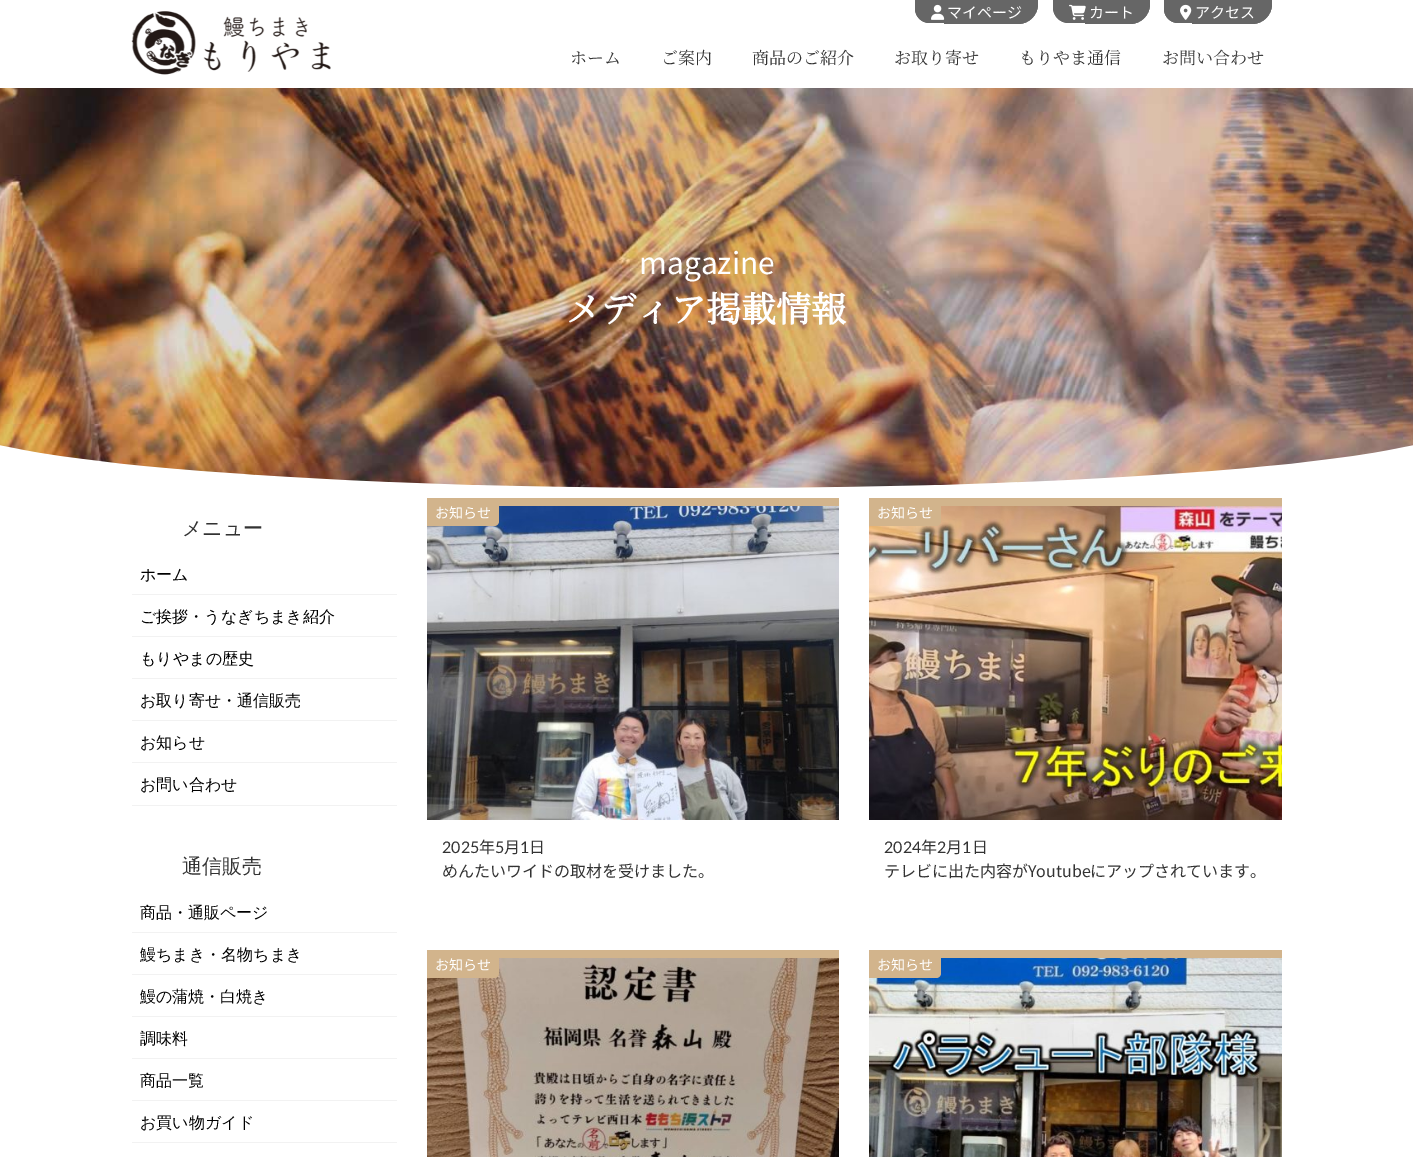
%!PS
<< /PageSize [1413 1157] >> setpagedevice
/rgb { 3 { 255 div 3 1 roll } repeat setrgbcolor } def
/font { [ exch dup neg 0 0 3 -1 roll 0 0 ] selectfont } def
/picture { 5 dict begin { /h /w /y /x /name } { exch def } forall
  gsave x y translate w h scale
  w h 8 [w 0 0 h 0 0] name (r) file false 3 colorimage grestore end } def
0 1157 translate 1 -1 scale
4 setmiterlimit
255 255 255 rgb
0 0 1413 1157 rectfill
(img/1.rgb) 131 11 200 64 picture
102 102 102 rgb
915 -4 moveto 944 -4 lineto 944 23 lineto 930 23 lineto 921.5 23 915 16.5 915 8 curveto closepath fill
915 -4 moveto 944 -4 lineto 944 23 lineto 929.5 23 lineto 921.5 23 915 16.5 915 8.5 curveto closepath 916 -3 moveto 944 -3 lineto 944 22 lineto 929.5 22 lineto 922 22 916 16 916 8.5 curveto closepath eofill
944 -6 moveto 1038 -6 lineto 1038 4 lineto 1038 15 1029 24 1018 24 curveto 944 24 lineto closepath fill
944 -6 moveto 1038 -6 lineto 1038 4 lineto 1038 15 1029 24 1018 24 curveto 944 24 lineto closepath 944 -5 moveto 1037 -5 lineto 1037 4 lineto 1037 14 1028 23 1018 23 curveto 944 23 lineto closepath eofill
(img/2.rgb) 931 4 14 16 picture
1053 -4 moveto 1085 -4 lineto 1085 23 lineto 1069 23 lineto 1060 23 1053 16 1053 7 curveto closepath fill
1053 -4 moveto 1085 -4 lineto 1085 23 lineto 1069 23 lineto 1060 23 1053 16 1053 7 curveto closepath 1054 -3 moveto 1085 -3 lineto 1085 22 lineto 1069 22 lineto 1060.5 22 1054 15.5 1054 7 curveto closepath eofill
1085 -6 moveto 1150 -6 lineto 1150 4 lineto 1150 15 1141 24 1130 24 curveto 1085 24 lineto closepath fill
1085 -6 moveto 1150 -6 lineto 1150 4 lineto 1150 15 1141 24 1130 24 curveto 1085 24 lineto closepath 1085 -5 moveto 1149 -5 lineto 1149 4 lineto 1149 14 1140 23 1130 23 curveto 1085 23 lineto closepath eofill
(img/3.rgb) 1069 4 17 16 picture
1164 -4 moveto 1192 -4 lineto 1192 23 lineto 1178 23 lineto 1170.5 23 1164 16.5 1164 9 curveto closepath fill
1164 -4 moveto 1192 -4 lineto 1192 23 lineto 1178 23 lineto 1170.5 23 1164 16.5 1164 9 curveto closepath 1165 -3 moveto 1192 -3 lineto 1192 22 lineto 1178 22 lineto 1171 22 1165 16 1165 9 curveto closepath eofill
1192 -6 moveto 1272 -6 lineto 1272 4 lineto 1272 15 1263 24 1252 24 curveto 1192 24 lineto closepath fill
1192 -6 moveto 1272 -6 lineto 1272 4 lineto 1272 15 1263 24 1252 24 curveto 1192 24 lineto closepath 1192 -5 moveto 1271 -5 lineto 1271 4 lineto 1271 14 1262 23 1252 23 curveto 1192 23 lineto closepath eofill
(img/4.rgb) 1180 4 12 16 picture
(img/5.rgb) 0 88 1413 400 picture
[
  [132 594 265 1 242 242 242]
  [132 636 265 1 242 242 242]
  [132 678 265 1 242 242 242]
  [132 720 265 1 242 242 242]
  [132 762 265 1 242 242 242]
  [132 805 265 1 242 242 242]
  [132 932 265 1 242 242 242]
  [132 974 265 1 242 242 242]
  [132 1016 265 1 242 242 242]
  [132 1058 265 1 242 242 242]
  [132 1100 265 1 242 242 242]
  [132 1142 265 1 242 242 242]
  [427 498 412 8 210 180 140]
] { aload pop rgb rectfill } forall
(img/6.rgb) 427 506 412 314 picture
427 499 moveto 499 499 lineto 499 521 lineto 499 524 497 526 494 526 curveto 427 526 lineto closepath fill
869 498 413 8 rectfill
(img/7.rgb) 869 506 413 314 picture
869 499 moveto 941 499 lineto 941 521 lineto 941 524 939 526 936 526 curveto 869 526 lineto closepath fill
427 950 412 8 rectfill
(img/8.rgb) 427 958 412 199 picture
427 951 moveto 499 951 lineto 499 973 lineto 499 976 497 978 494 978 curveto 427 978 lineto closepath fill
869 950 413 8 rectfill
(img/9.rgb) 869 958 413 199 picture
869 951 moveto 941 951 lineto 941 973 lineto 941 976 939 978 936 978 curveto 869 978 lineto closepath fill
/NotoSansJP-Thin 15 font
255 255 255 rgb
[
  [(マイページ) 947 18]
  [(カート) 1089 18]
  [(アクセス) 1195 18]
] { aload pop moveto show } forall
/NotoSerifJP-ExtraLight 17 font
51 51 51 rgb
[
  [(ホーム) 570 64]
  [(ご案内) 661 64]
  [(商品のご紹介) 752 64]
  [(お取り寄せ) 894 64]
  [(もりやま通信) 1019 64]
  [(お問い合わせ) 1162 64]
] { aload pop moveto show } forall
/NotoSansJP-Thin 30 font
255 255 255 rgb
639 274 moveto (magazine) show
/NotoSerifJP-Bold 35 font
566 322 moveto (メディア掲載情報) show
/WenQuanYiZenHei-Medium 20 font
51 51 51 rgb
182 535 moveto (メニュー) show
/WenQuanYiZenHei-Medium 16 font
0 0 0 rgb
[
  [(ホーム) 140 580]
  [(ご挨拶・うなぎちまき紹介) 140 622]
  [(もりやまの歴史) 140 664]
  [(お取り寄せ・通信販売) 140 706]
  [(お知らせ) 140 748]
  [(お問い合わせ) 140 790]
] { aload pop moveto show } forall
/WenQuanYiZenHei-Medium 20 font
51 51 51 rgb
182 873 moveto (通信販売) show
/WenQuanYiZenHei-Medium 16 font
0 0 0 rgb
[
  [(商品・通販ページ) 140 918]
  [(鰻ちまき・名物ちまき) 140 960]
  [(鰻の蒲焼・白焼き) 140 1002]
  [(調味料) 140 1044]
  [(商品一覧) 140 1086]
  [(お買い物ガイド) 140 1128]
] { aload pop moveto show } forall
/NotoSansJP-Thin 14 font
255 255 255 rgb
435 518 moveto (お知らせ) show
/Lato-Regular 16 font
51 51 51 rgb
442 853 moveto (2025) show
/NotoSansJP-Thin 16 font
479 853 moveto (年) show
/Lato-Regular 16 font
495 853 moveto (5) show
/NotoSansJP-Thin 16 font
504 853 moveto (月) show
/Lato-Regular 16 font
520 853 moveto (1) show
/NotoSansJP-Thin 16 font
529 853 moveto (日) show
442 877 moveto (めんたいワイドの取材を受けました。) show
/NotoSansJP-Thin 14 font
255 255 255 rgb
877 518 moveto (お知らせ) show
/Lato-Regular 16 font
51 51 51 rgb
884 853 moveto (2024) show
/NotoSansJP-Thin 16 font
921 853 moveto (年) show
/Lato-Regular 16 font
937 853 moveto (2) show
/NotoSansJP-Thin 16 font
946 853 moveto (月) show
/Lato-Regular 16 font
962 853 moveto (1) show
/NotoSansJP-Thin 16 font
972 853 moveto (日) show
884 877 moveto (テレビに出た内容がYoutubeにアップされています。) show
/NotoSansJP-Thin 14 font
255 255 255 rgb
435 970 moveto (お知らせ) show
877 970 moveto (お知らせ) show
showpage
